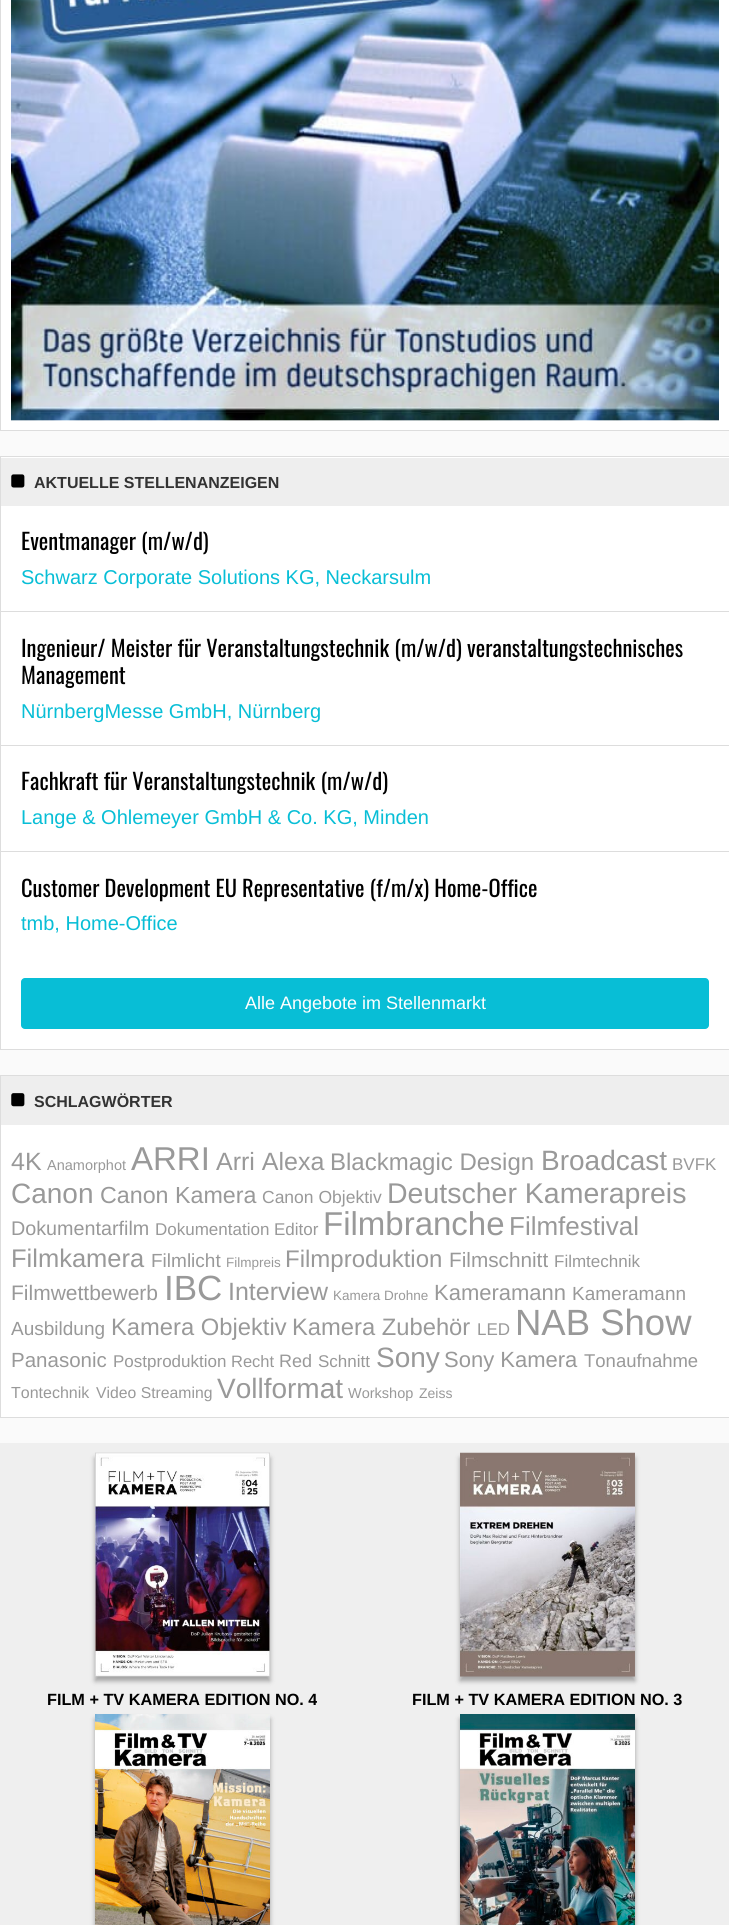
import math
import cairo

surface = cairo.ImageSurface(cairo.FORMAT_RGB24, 729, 1925)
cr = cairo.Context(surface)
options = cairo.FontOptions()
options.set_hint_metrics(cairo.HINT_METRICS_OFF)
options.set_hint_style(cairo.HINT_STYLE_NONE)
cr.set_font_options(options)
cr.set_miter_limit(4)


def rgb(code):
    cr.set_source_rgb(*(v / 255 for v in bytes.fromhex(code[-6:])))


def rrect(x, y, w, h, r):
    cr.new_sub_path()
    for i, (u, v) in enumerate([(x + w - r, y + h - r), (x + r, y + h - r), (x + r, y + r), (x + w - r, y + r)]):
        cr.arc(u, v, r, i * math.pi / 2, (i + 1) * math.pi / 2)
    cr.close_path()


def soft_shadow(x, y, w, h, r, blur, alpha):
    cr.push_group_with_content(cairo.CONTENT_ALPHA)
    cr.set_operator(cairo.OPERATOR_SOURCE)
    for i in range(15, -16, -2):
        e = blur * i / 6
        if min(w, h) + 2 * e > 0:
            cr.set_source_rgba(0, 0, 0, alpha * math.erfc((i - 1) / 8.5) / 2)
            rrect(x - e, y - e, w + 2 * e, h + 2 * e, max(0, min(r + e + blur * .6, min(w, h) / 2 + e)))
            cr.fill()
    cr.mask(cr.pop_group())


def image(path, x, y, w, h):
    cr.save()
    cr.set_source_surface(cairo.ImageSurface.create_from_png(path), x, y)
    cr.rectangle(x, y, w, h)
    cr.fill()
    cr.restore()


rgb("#fafafa")
cr.paint()
rgb("#ffffff")
cr.rectangle(0.5, -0.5, 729, 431)
cr.fill_preserve()
rgb("#dddddd")
cr.set_line_width(1)
cr.stroke()
image("img/1.png", 11, 0, 708, 421)
rgb("#ffffff")
cr.rectangle(0.5, 456.5, 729, 593)
cr.fill_preserve()
rgb("#dddddd")
cr.stroke()
rgb("#eeeeee")
cr.rectangle(1, 458, 728, 48)
cr.fill()
image("img/2.png", 11, 474, 14, 14)
for x, y, w, h, color in [
    (1, 611, 728, 1, "#dddddd"),
    (1, 745, 728, 1, "#dddddd"),
    (1, 851, 728, 1, "#dddddd"),
]:
    rgb(color)
    cr.rectangle(x, y, w, h)
    cr.fill()
rgb("#08bed6")
rrect(21, 978, 688, 51, 4)
cr.fill()
rgb("#ffffff")
cr.rectangle(1, 1125, 728, 292)
cr.fill()
cr.rectangle(0.5, 1075.5, 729, 342)
rgb("#dddddd")
cr.stroke()
rgb("#eeeeee")
cr.rectangle(1, 1076, 728, 49)
cr.fill()
image("img/3.png", 11, 1093, 14, 14)
rgb("#efefef")
cr.rectangle(0, 1443, 729, 482)
cr.fill()
rgb("#a2a2a2")
soft_shadow(95, 1458, 175, 223, 0, 2.5, 1)
image("img/4.png", 95, 1452, 175, 225)
soft_shadow(460, 1458, 175, 223, 0, 2.5, 1)
image("img/5.png", 460, 1452, 175, 225)
soft_shadow(95, 1719, 175, 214, 0, 2.5, 1)
image("img/6.png", 95, 1714, 175, 211)
soft_shadow(460, 1719, 175, 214, 0, 2.5, 1)
image("img/7.png", 460, 1714, 175, 211)
cr.select_font_face("Liberation Sans", cairo.FONT_SLANT_NORMAL, cairo.FONT_WEIGHT_BOLD)
cr.set_font_size(16)
rgb("#333333")
cr.move_to(34, 488)
cr.show_text("AKTUELLE STELLENANZEIGEN")
cr.select_font_face("Oswald")
cr.set_font_size(22.5)
rgb("#000000")
cr.move_to(21, 550)
cr.show_text("Eventmanager (m/w/d)")
cr.select_font_face("Liberation Sans")
cr.set_font_size(20)
rgb("#08bed6")
cr.move_to(21, 584)
cr.show_text("Schwarz Corporate Solutions KG, Neckarsulm")
cr.select_font_face("Oswald")
cr.set_font_size(22.5)
rgb("#000000")
cr.move_to(21, 657)
cr.show_text("Ingenieur/ Meister für Veranstaltungstechnik (m/w/d) veranstaltungstechnisches")
cr.move_to(21, 684)
cr.show_text("Management")
cr.select_font_face("Liberation Sans")
cr.set_font_size(20)
rgb("#08bed6")
cr.move_to(21, 718)
cr.show_text("NürnbergMesse GmbH, Nürnberg")
cr.select_font_face("Oswald")
cr.set_font_size(22.5)
rgb("#000000")
cr.move_to(21, 790)
cr.show_text("Fachkraft für Veranstaltungstechnik (m/w/d)")
cr.select_font_face("Liberation Sans")
cr.set_font_size(20)
rgb("#08bed6")
cr.move_to(21, 824)
cr.show_text("Lange & Ohlemeyer GmbH & Co. KG, Minden")
cr.select_font_face("Oswald")
cr.set_font_size(22.5)
rgb("#000000")
cr.move_to(21, 897)
cr.show_text("Customer Development EU Representative (f/m/x) Home-Office")
cr.select_font_face("Liberation Sans")
cr.set_font_size(20)
rgb("#08bed6")
cr.move_to(21, 930)
cr.show_text("tmb, Home-Office")
cr.set_font_size(18)
rgb("#ffffff")
cr.move_to(245, 1009)
cr.show_text("Alle Angebote im Stellenmarkt")
cr.select_font_face("Liberation Sans", cairo.FONT_SLANT_NORMAL, cairo.FONT_WEIGHT_BOLD)
cr.set_font_size(16)
rgb("#333333")
cr.move_to(34, 1107)
cr.show_text("SCHLAGWÖRTER")
cr.select_font_face("Liberation Sans")
cr.set_font_size(25)
rgb("#999999")
cr.move_to(11, 1170)
cr.show_text("4K")
cr.set_font_size(14.5)
cr.move_to(47, 1170)
cr.show_text("Anamorphot")
cr.set_font_size(33)
cr.move_to(131, 1170)
cr.show_text("ARRI")
cr.set_font_size(25)
cr.move_to(216, 1170)
cr.show_text("Arri Alexa")
cr.set_font_size(24)
cr.move_to(330, 1170)
cr.show_text("Blackmagic Design")
cr.set_font_size(28)
cr.move_to(541, 1170)
cr.show_text("Broadcast")
cr.set_font_size(17)
cr.move_to(672, 1170)
cr.show_text("BVFK")
cr.set_font_size(28)
cr.move_to(11, 1203)
cr.show_text("Canon")
cr.set_font_size(23.25)
cr.move_to(100, 1203)
cr.show_text("Canon Kamera")
cr.set_font_size(17.5)
cr.move_to(262, 1203)
cr.show_text("Canon Objektiv")
cr.set_font_size(28.5)
cr.move_to(387, 1203)
cr.show_text("Deutscher Kamerapreis")
cr.set_font_size(19.75)
cr.move_to(11, 1235)
cr.show_text("Dokumentarfilm")
cr.set_font_size(17)
cr.move_to(155, 1235)
cr.show_text("Dokumentation")
cr.move_to(274, 1235)
cr.show_text("Editor")
cr.set_font_size(33)
cr.move_to(323, 1235)
cr.show_text("Filmbranche")
cr.set_font_size(26)
cr.move_to(509, 1235)
cr.show_text("Filmfestival")
cr.set_font_size(25.5)
cr.move_to(11, 1267)
cr.show_text("Filmkamera")
cr.set_font_size(19)
cr.move_to(151, 1267)
cr.show_text("Filmlicht")
cr.set_font_size(13.5)
cr.move_to(226, 1267)
cr.show_text("Filmpreis")
cr.set_font_size(24)
cr.move_to(285, 1267)
cr.show_text("Filmproduktion")
cr.set_font_size(20.75)
cr.move_to(449, 1267)
cr.show_text("Filmschnitt")
cr.set_font_size(17)
cr.move_to(554, 1267)
cr.show_text("Filmtechnik")
cr.set_font_size(21)
cr.move_to(11, 1300)
cr.show_text("Filmwettbewerb")
cr.set_font_size(35)
cr.move_to(164, 1300)
cr.show_text("IBC")
cr.set_font_size(25)
cr.move_to(228, 1300)
cr.show_text("Interview")
cr.set_font_size(13.5)
cr.move_to(333, 1300)
cr.show_text("Kamera Drohne")
cr.set_font_size(22)
cr.move_to(434, 1300)
cr.show_text("Kameramann")
cr.set_font_size(19)
cr.move_to(572, 1300)
cr.show_text("Kameramann")
cr.move_to(11, 1335)
cr.show_text("Ausbildung")
cr.set_font_size(23.75)
cr.move_to(111, 1335)
cr.show_text("Kamera Objektiv")
cr.move_to(292, 1335)
cr.show_text("Kamera Zubehör")
cr.set_font_size(17)
cr.move_to(477, 1335)
cr.show_text("LED")
cr.set_font_size(36.5)
cr.move_to(515, 1335)
cr.show_text("NAB Show")
cr.set_font_size(20.5)
cr.move_to(11, 1367)
cr.show_text("Panasonic")
cr.set_font_size(17)
cr.move_to(113, 1367)
cr.show_text("Postproduktion")
cr.set_font_size(16.5)
cr.move_to(231, 1367)
cr.show_text("Recht")
cr.set_font_size(18)
cr.move_to(279, 1367)
cr.show_text("Red")
cr.set_font_size(17)
cr.move_to(318, 1367)
cr.show_text("Schnitt")
cr.set_font_size(28)
cr.move_to(376, 1367)
cr.show_text("Sony")
cr.set_font_size(22)
cr.move_to(444, 1367)
cr.show_text("Sony Kamera")
cr.set_font_size(18.5)
cr.move_to(584, 1367)
cr.show_text("Tonaufnahme")
cr.set_font_size(16)
cr.move_to(11, 1398)
cr.show_text("Tontechnik")
cr.set_font_size(15.75)
cr.move_to(96, 1398)
cr.show_text("Video Streaming")
cr.set_font_size(28)
cr.move_to(217, 1398)
cr.show_text("Vollformat")
cr.set_font_size(14.5)
cr.move_to(348, 1398)
cr.show_text("Workshop")
cr.set_font_size(14)
cr.move_to(419, 1398)
cr.show_text("Zeiss")
cr.select_font_face("Liberation Sans", cairo.FONT_SLANT_NORMAL, cairo.FONT_WEIGHT_BOLD)
cr.set_font_size(16.25)
rgb("#000000")
cr.move_to(47, 1705)
cr.show_text("FILM + TV KAMERA EDITION NO. 4")
cr.move_to(412, 1705)
cr.show_text("FILM + TV KAMERA EDITION NO. 3")
surface.write_to_png("page.png")
